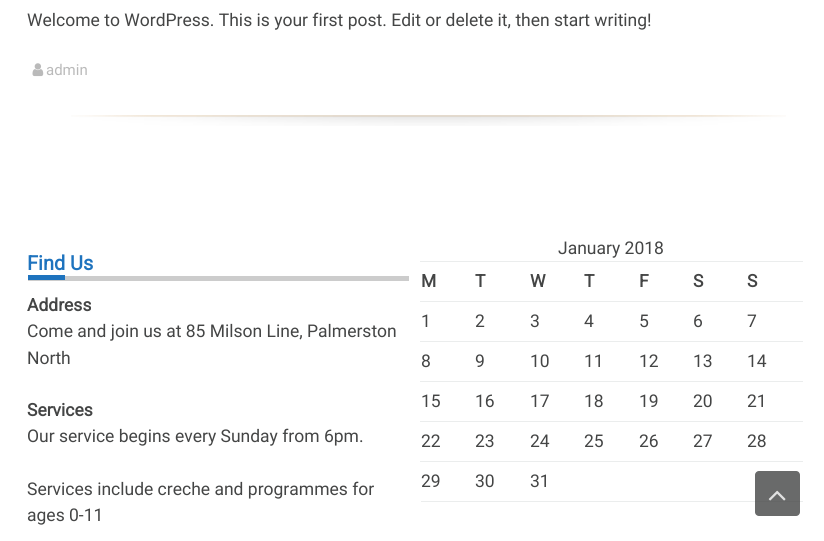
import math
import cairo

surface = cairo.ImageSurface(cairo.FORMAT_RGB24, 824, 541)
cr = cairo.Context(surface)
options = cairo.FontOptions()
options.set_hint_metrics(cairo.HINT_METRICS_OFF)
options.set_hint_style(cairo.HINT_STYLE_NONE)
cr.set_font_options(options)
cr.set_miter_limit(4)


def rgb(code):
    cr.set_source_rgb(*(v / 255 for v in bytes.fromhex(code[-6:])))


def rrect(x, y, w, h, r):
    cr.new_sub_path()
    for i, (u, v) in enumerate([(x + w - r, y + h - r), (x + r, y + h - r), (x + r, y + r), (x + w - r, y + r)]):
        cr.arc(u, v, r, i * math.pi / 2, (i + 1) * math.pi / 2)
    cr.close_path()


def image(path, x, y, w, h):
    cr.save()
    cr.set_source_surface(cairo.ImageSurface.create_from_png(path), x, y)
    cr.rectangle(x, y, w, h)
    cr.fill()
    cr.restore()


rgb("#ffffff")
cr.paint()
image("img/1.png", 71, 115, 715, 11)
image("img/2.png", 32, 63, 12, 14)
for x, y, w, h, color in [
    (28, 276, 381, 5, "#cccccc"),
    (28, 275, 37, 5, "#1e73be"),
    (421, 501, 382, 1, "#ebeded"),
    (420, 261, 383, 1, "#ebeded"),
    (420, 301, 383, 1, "#ebeded"),
    (420, 341, 383, 1, "#ebeded"),
    (420, 381, 383, 1, "#ebeded"),
    (420, 421, 383, 1, "#ebeded"),
    (420, 461, 383, 1, "#ebeded"),
]:
    rgb(color)
    cr.rectangle(x, y, w, h)
    cr.fill()
cr.set_source_rgba(0.267, 0.271, 0.271, 0.8)
rrect(755, 471, 45, 45, 4)
cr.fill()
image("img/3.png", 768, 490, 18, 11)
cr.select_font_face("Roboto")
cr.set_font_size(17.5)
rgb("#444545")
cr.move_to(27, 26)
cr.show_text("Welcome to WordPress. This is your first post. Edit or delete it, then start writing!")
cr.set_font_size(15)
rgb("#bababa")
cr.move_to(46, 75)
cr.show_text("admin")
cr.select_font_face("Roboto", cairo.FONT_SLANT_NORMAL, cairo.FONT_WEIGHT_BOLD)
cr.set_font_size(20)
rgb("#1e73be")
cr.move_to(27, 270)
cr.show_text("Find")
cr.move_to(70, 270)
cr.show_text("Us")
cr.set_font_size(17.5)
rgb("#444545")
cr.move_to(27, 311)
cr.show_text("Address")
cr.select_font_face("Roboto")
cr.move_to(27, 337)
cr.show_text("Come and join us at 85 Milson Line, Palmerston")
cr.move_to(27, 364)
cr.show_text("North")
cr.select_font_face("Roboto", cairo.FONT_SLANT_NORMAL, cairo.FONT_WEIGHT_BOLD)
cr.move_to(27, 416)
cr.show_text("Services")
cr.select_font_face("Roboto")
for x, y, s in [
    (27, 442, "Our service begins every Sunday from 6pm."),
    (27, 495, "Services include creche and programmes for"),
    (27, 521, "ages 0-11"),
    (558, 254, "January 2018"),
]:
    cr.move_to(x, y)
    cr.show_text(s)
cr.select_font_face("Roboto", cairo.FONT_SLANT_NORMAL, cairo.FONT_WEIGHT_BOLD)
for x, y, s in [
    (421, 287, "M"),
    (475, 287, "T"),
    (530, 287, "W"),
    (584, 287, "T"),
    (639, 287, "F"),
    (693, 287, "S"),
    (747, 287, "S"),
]:
    cr.move_to(x, y)
    cr.show_text(s)
cr.select_font_face("Roboto")
for x, y, s in [
    (421, 327, "1"),
    (475, 327, "2"),
    (530, 327, "3"),
    (584, 327, "4"),
    (639, 327, "5"),
    (693, 327, "6"),
    (747, 327, "7"),
    (421, 367, "8"),
    (475, 367, "9"),
    (530, 367, "10"),
    (584, 367, "11"),
    (639, 367, "12"),
    (693, 367, "13"),
    (747, 367, "14"),
    (421, 407, "15"),
    (475, 407, "16"),
    (530, 407, "17"),
    (584, 407, "18"),
    (639, 407, "19"),
    (693, 407, "20"),
    (747, 407, "21"),
    (421, 447, "22"),
    (475, 447, "23"),
    (530, 447, "24"),
    (584, 447, "25"),
    (639, 447, "26"),
    (693, 447, "27"),
    (747, 447, "28"),
    (421, 487, "29"),
    (475, 487, "30"),
    (530, 487, "31"),
]:
    cr.move_to(x, y)
    cr.show_text(s)
surface.write_to_png("page.png")
